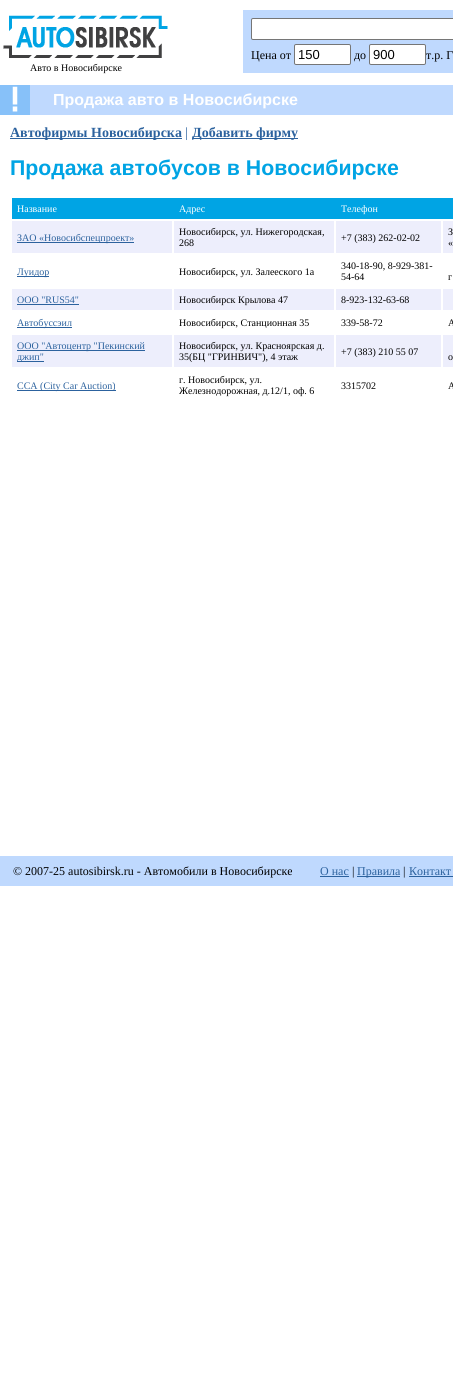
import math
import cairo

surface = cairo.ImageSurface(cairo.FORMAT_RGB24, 453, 1394)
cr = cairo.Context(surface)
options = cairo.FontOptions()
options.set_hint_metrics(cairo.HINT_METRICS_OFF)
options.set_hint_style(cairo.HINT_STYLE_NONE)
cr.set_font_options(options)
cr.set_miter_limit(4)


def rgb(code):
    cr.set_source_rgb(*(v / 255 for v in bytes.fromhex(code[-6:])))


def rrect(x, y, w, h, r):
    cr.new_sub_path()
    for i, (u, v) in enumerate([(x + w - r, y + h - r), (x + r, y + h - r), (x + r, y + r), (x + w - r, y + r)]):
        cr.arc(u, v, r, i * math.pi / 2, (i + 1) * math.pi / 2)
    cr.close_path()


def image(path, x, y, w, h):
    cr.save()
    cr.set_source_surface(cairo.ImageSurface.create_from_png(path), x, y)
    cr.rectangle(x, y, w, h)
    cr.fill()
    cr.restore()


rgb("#ffffff")
cr.paint()
rgb("#bfd9fe")
cr.rectangle(243, 10, 210, 63)
cr.fill()
rgb("#ffffff")
rrect(251.5, 18.5, 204, 21, 1.5)
cr.fill_preserve()
rgb("#767676")
cr.set_line_width(1)
cr.stroke()
rgb("#ffffff")
rrect(294.5, 44.5, 56, 20, 1.5)
cr.fill_preserve()
rgb("#767676")
cr.stroke()
rgb("#ffffff")
rrect(369.5, 44.5, 56, 20, 1.5)
cr.fill_preserve()
rgb("#767676")
cr.stroke()
image("img/1.png", 3, 15, 165, 43)
rgb("#bfd9fe")
cr.rectangle(30, 85, 423, 30)
cr.fill()
image("img/2.png", 0, 85, 30, 30)
for x, y, w, h, color in [
    (10, 138, 172, 1, "#2c629e"),
    (192, 138, 106, 1, "#2c629e"),
    (12, 198, 441, 21, "#00a4e4"),
    (12, 221, 160, 32, "#edeefc"),
    (17, 242, 117, 1, "#2c629e"),
    (174, 221, 160, 32, "#edeefc"),
    (336, 221, 105, 32, "#edeefc"),
    (443, 221, 10, 32, "#edeefc"),
    (17, 276, 32, 1, "#2c629e"),
    (12, 289, 160, 21, "#edeefc"),
    (17, 304, 62, 1, "#2c629e"),
    (174, 289, 160, 21, "#edeefc"),
    (336, 289, 105, 21, "#edeefc"),
    (443, 289, 10, 21, "#edeefc"),
    (17, 327, 55, 1, "#2c629e"),
    (12, 335, 160, 32, "#edeefc"),
    (17, 350, 128, 1, "#2c629e"),
    (17, 361, 27, 1, "#2c629e"),
    (174, 335, 160, 32, "#edeefc"),
    (336, 335, 105, 32, "#edeefc"),
    (443, 335, 10, 32, "#edeefc"),
    (17, 390, 99, 1, "#2c629e"),
    (0, 856, 453, 30, "#bfd9fe"),
    (320, 876, 29, 1, "#2c629e"),
    (357, 876, 43, 1, "#2c629e"),
    (409, 876, 44, 1, "#2c629e"),
]:
    rgb(color)
    cr.rectangle(x, y, w, h)
    cr.fill()
cr.select_font_face("Liberation Serif")
cr.set_font_size(12)
rgb("#000000")
cr.move_to(251, 59)
cr.show_text("Цена от")
cr.select_font_face("Liberation Sans")
cr.set_font_size(13)
cr.move_to(298, 59)
cr.show_text("150")
cr.select_font_face("Liberation Serif")
cr.set_font_size(12)
cr.move_to(354, 59)
cr.show_text("до")
cr.select_font_face("Liberation Sans")
cr.set_font_size(13)
cr.move_to(373, 59)
cr.show_text("900")
cr.select_font_face("Liberation Serif")
cr.set_font_size(12)
cr.move_to(426, 59)
cr.show_text("т.р. Г")
cr.set_font_size(10)
cr.move_to(30, 71)
cr.show_text("Авто в Новосибирске")
cr.select_font_face("Liberation Sans", cairo.FONT_SLANT_NORMAL, cairo.FONT_WEIGHT_BOLD)
cr.set_font_size(16)
rgb("#ffffff")
cr.move_to(53, 105)
cr.show_text("Продажа авто в Новосибирске")
cr.select_font_face("Liberation Serif", cairo.FONT_SLANT_NORMAL, cairo.FONT_WEIGHT_BOLD)
cr.set_font_size(14)
rgb("#2c629e")
cr.move_to(10, 137)
cr.show_text("Автофирмы Новосибирска")
cr.select_font_face("Liberation Serif")
cr.move_to(185, 137)
cr.show_text("|")
cr.select_font_face("Liberation Serif", cairo.FONT_SLANT_NORMAL, cairo.FONT_WEIGHT_BOLD)
cr.move_to(192, 137)
cr.show_text("Добавить фирму")
cr.select_font_face("Liberation Sans", cairo.FONT_SLANT_NORMAL, cairo.FONT_WEIGHT_BOLD)
cr.set_font_size(21.3)
rgb("#00a4e4")
cr.move_to(10, 175)
cr.show_text("Продажа автобусов в Новосибирске")
cr.select_font_face("Liberation Serif")
cr.set_font_size(10)
rgb("#ffffff")
for x, y, s in [
    (17, 212, "Название"),
    (179, 212, "Адрес"),
    (341, 212, "Телефон"),
]:
    cr.move_to(x, y)
    cr.show_text(s)
rgb("#2c629e")
cr.move_to(17, 241)
cr.show_text("ЗАО «Новосибспецпроект»")
rgb("#000000")
for x, y, s in [
    (179, 235, "Новосибирск, ул. Нижегородская,"),
    (179, 246, "268"),
    (341, 241, "+7 (383) 262-02-02"),
    (448, 235, "З"),
    (448, 246, "«"),
]:
    cr.move_to(x, y)
    cr.show_text(s)
rgb("#2c629e")
cr.move_to(17, 275)
cr.show_text("Луидор")
rgb("#000000")
for x, y, s in [
    (179, 275, "Новосибирск, ул. Залееского 1а"),
    (341, 269, "340-18-90, 8-929-381-"),
    (341, 280, "54-64"),
    (448, 280, "г"),
]:
    cr.move_to(x, y)
    cr.show_text(s)
rgb("#2c629e")
cr.move_to(17, 303)
cr.show_text("OOO \"RUS54\"")
rgb("#000000")
cr.move_to(179, 303)
cr.show_text("Новосибирск Крылова 47")
cr.move_to(341, 303)
cr.show_text("8-923-132-63-68")
rgb("#2c629e")
cr.move_to(17, 326)
cr.show_text("Автобуссэил")
rgb("#000000")
for x, y, s in [
    (179, 326, "Новосибирск, Станционная 35"),
    (341, 326, "339-58-72"),
    (448, 326, "А"),
]:
    cr.move_to(x, y)
    cr.show_text(s)
rgb("#2c629e")
cr.move_to(17, 349)
cr.show_text("ООО \"Автоцентр \"Пекинский")
cr.move_to(17, 360)
cr.show_text("джип\"")
rgb("#000000")
for x, y, s in [
    (179, 349, "Новосибирск, ул. Красноярская д."),
    (179, 360, "35(БЦ \"ГРИНВИЧ\"), 4 этаж"),
    (341, 355, "+7 (383) 210 55 07"),
    (448, 360, "о"),
]:
    cr.move_to(x, y)
    cr.show_text(s)
rgb("#2c629e")
cr.move_to(17, 389)
cr.show_text("CCA (City Car Auction)")
rgb("#000000")
for x, y, s in [
    (179, 383, "г. Новосибирск, ул."),
    (179, 394, "Железнодорожная, д.12/1, оф. 6"),
    (341, 389, "3315702"),
    (448, 389, "А"),
]:
    cr.move_to(x, y)
    cr.show_text(s)
cr.set_font_size(12)
cr.move_to(13, 875)
cr.show_text("© 2007-25 autosibirsk.ru - Автомобили в Новосибирске")
rgb("#2c629e")
cr.move_to(320, 875)
cr.show_text("О нас")
rgb("#000000")
cr.move_to(352, 875)
cr.show_text("|")
rgb("#2c629e")
cr.move_to(357, 875)
cr.show_text("Правила")
rgb("#000000")
cr.move_to(403, 875)
cr.show_text("|")
rgb("#2c629e")
cr.move_to(409, 875)
cr.show_text("Контакт")
surface.write_to_png("page.png")
